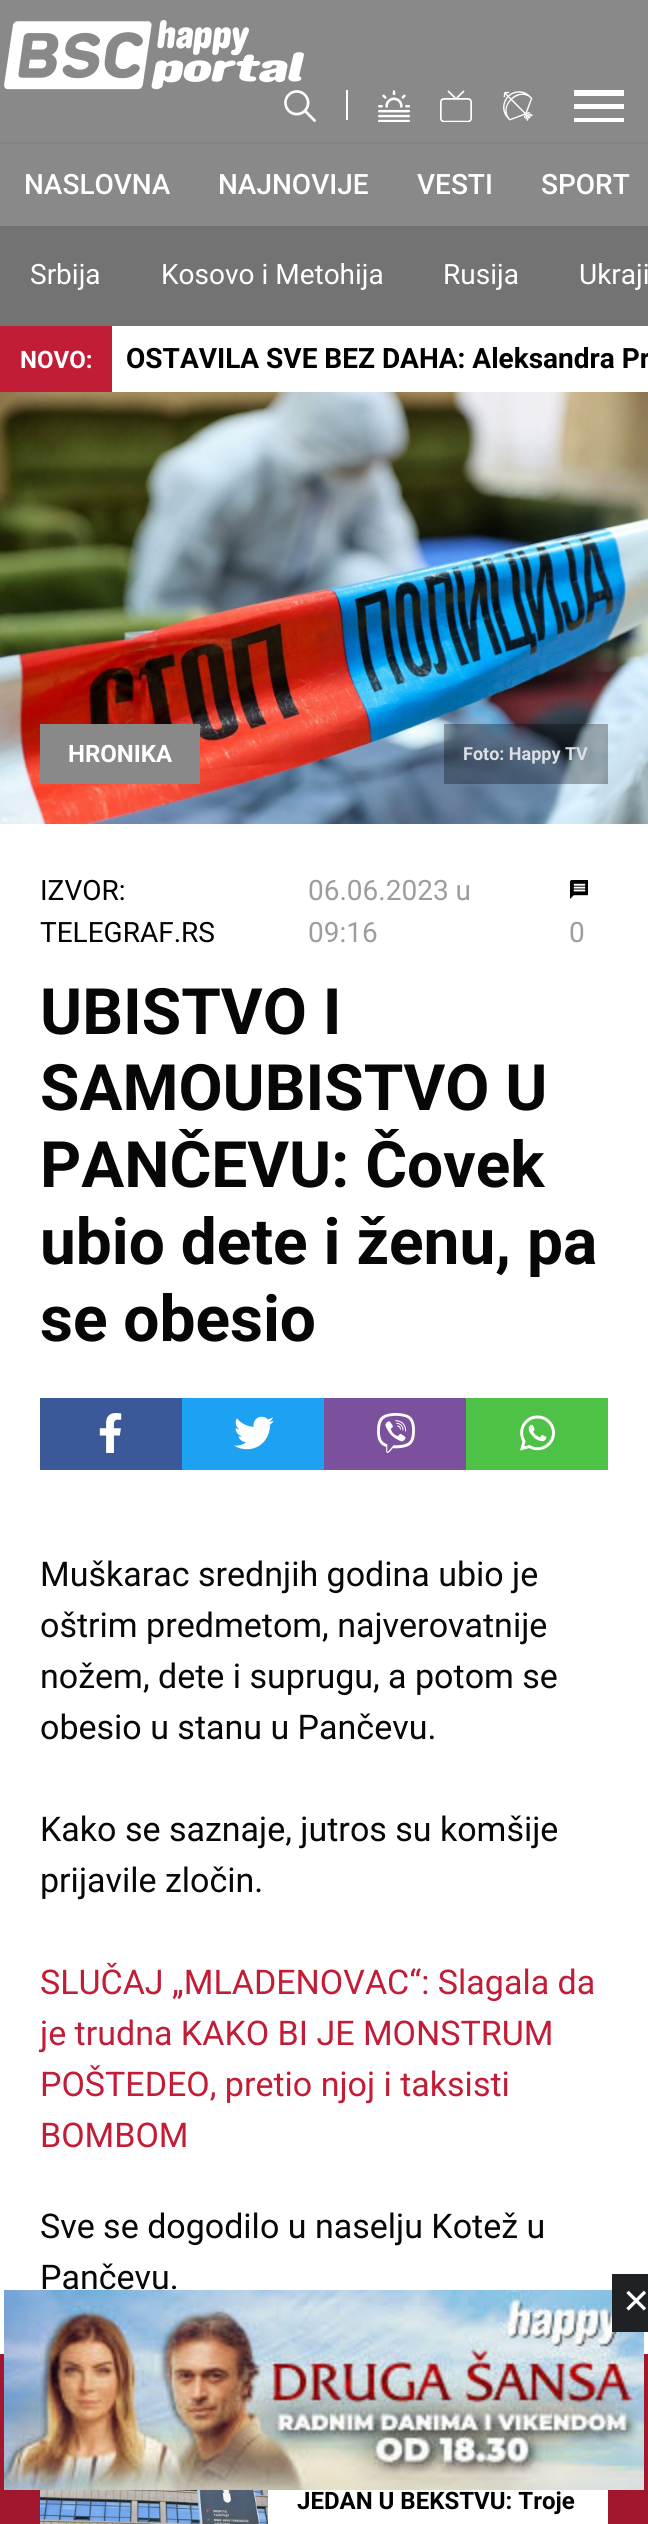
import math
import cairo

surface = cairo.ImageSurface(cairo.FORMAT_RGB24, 648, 2524)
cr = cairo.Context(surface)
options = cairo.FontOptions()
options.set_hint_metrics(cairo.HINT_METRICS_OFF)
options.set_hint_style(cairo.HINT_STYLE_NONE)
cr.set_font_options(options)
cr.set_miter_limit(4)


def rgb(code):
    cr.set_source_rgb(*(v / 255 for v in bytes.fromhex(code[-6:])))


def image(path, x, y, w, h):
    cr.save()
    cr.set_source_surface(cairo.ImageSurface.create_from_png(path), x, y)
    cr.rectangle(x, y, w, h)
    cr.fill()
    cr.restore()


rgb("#ffffff")
cr.paint()
rgb("#898989")
cr.rectangle(0, 0, 648, 142)
cr.fill()
image("img/1.png", 4, 20, 300, 70)
image("img/2.png", 284, 90, 32, 32)
rgb("#ffffff")
cr.rectangle(346, 90, 2, 30)
cr.fill()
image("img/3.png", 378, 90, 32, 32)
image("img/4.png", 440, 90, 32, 32)
image("img/5.png", 503, 91, 30, 30)
for x, y, w, h, color in [
    (574, 90, 50, 6, "#ffffff"),
    (574, 104, 50, 5, "#ffffff"),
    (574, 118, 50, 4, "#ffffff"),
    (0, 144, 648, 82, "#898989"),
    (0, 142, 648, 2, "#828282"),
    (0, 226, 648, 100, "#737373"),
    (0, 326, 112, 66, "#c11d36"),
]:
    rgb(color)
    cr.rectangle(x, y, w, h)
    cr.fill()
image("img/6.png", 0, 392, 648, 432)
rgb("#898989")
cr.rectangle(40, 724, 160, 60)
cr.fill()
cr.set_source_rgba(0, 0, 0, 0.31)
cr.rectangle(444, 724, 164, 60)
cr.fill()
image("img/7.png", 570, 880, 18, 19)
rgb("#3b5998")
cr.rectangle(40, 1398, 142, 72)
cr.fill()
image("img/8.png", 99, 1413, 23, 40)
rgb("#1da1f2")
cr.rectangle(182, 1398, 142, 72)
cr.fill()
image("img/9.png", 234, 1416, 40, 34)
rgb("#7b519d")
cr.rectangle(324, 1398, 142, 72)
cr.fill()
image("img/10.png", 377, 1413, 38, 40)
rgb("#4dc247")
cr.rectangle(466, 1398, 142, 72)
cr.fill()
image("img/11.png", 520, 1415, 35, 36)
rgb("#a2172e")
cr.rectangle(0, 2354, 648, 170)
cr.fill()
rgb("#ffffff")
cr.rectangle(268, 2490, 340, 34)
cr.fill()
image("img/12.png", 40, 2490, 228, 34)
image("img/13.png", 4, 2290, 640, 200)
rgb("#202124")
cr.rectangle(612, 2274, 36, 58)
cr.fill()
cr.select_font_face("Roboto Medium")
cr.set_font_size(28)
rgb("#ffffff")
for x, y, s in [
    (24, 194, "NASLOVNA"),
    (218, 194, "NAJNOVIJE"),
    (417, 194, "VESTI"),
    (541, 194, "SPORT"),
]:
    cr.move_to(x, y)
    cr.show_text(s)
cr.select_font_face("Roboto")
for x, y, s in [
    (30, 284, "Srbija"),
    (161, 284, "Kosovo i Metohija"),
    (443, 284, "Rusija"),
    (579, 284, "Ukraji"),
]:
    cr.move_to(x, y)
    cr.show_text(s)
cr.select_font_face("Roboto", cairo.FONT_SLANT_NORMAL, cairo.FONT_WEIGHT_BOLD)
cr.set_font_size(24)
cr.move_to(20, 368)
cr.show_text("NOVO:")
cr.set_font_size(28)
rgb("#000000")
cr.move_to(126, 368)
cr.show_text("OSTAVILA SVE BEZ DAHA: Aleksandra Pr")
cr.set_font_size(24)
rgb("#ffffff")
cr.move_to(68, 762)
cr.show_text("HRONIKA")
cr.set_font_size(18)
rgb("#dce0e4")
cr.move_to(463, 760)
cr.show_text("Foto: Happy TV")
cr.select_font_face("Roboto")
cr.set_font_size(28)
rgb("#000000")
cr.move_to(40, 900)
cr.show_text("IZVOR:")
cr.move_to(40, 942)
cr.show_text("TELEGRAF.RS")
rgb("#9d9d9d")
for x, y, s in [
    (308, 900, "06.06.2023 u"),
    (308, 942, "09:16"),
    (569, 942, "0"),
]:
    cr.move_to(x, y)
    cr.show_text(s)
cr.select_font_face("Roboto", cairo.FONT_SLANT_NORMAL, cairo.FONT_WEIGHT_BOLD)
cr.set_font_size(64)
rgb("#070707")
for x, y, s in [
    (40, 1034, "UBISTVO I"),
    (40, 1110, "SAMOUBISTVO U"),
    (40, 1187, "PANČEVU: Čovek"),
    (40, 1264, "ubio dete i ženu, pa"),
    (40, 1341, "se obesio"),
]:
    cr.move_to(x, y)
    cr.show_text(s)
cr.select_font_face("Roboto")
cr.set_font_size(34)
for x, y, s in [
    (40, 1586, "Muškarac srednjih godina ubio je"),
    (40, 1637, "oštrim predmetom, najverovatnije"),
    (40, 1688, "nožem, dete i suprugu, a potom se"),
    (40, 1739, "obesio u stanu u Pančevu."),
    (40, 1841, "Kako se saznaje, jutros su komšije"),
    (40, 1892, "prijavile zločin."),
]:
    cr.move_to(x, y)
    cr.show_text(s)
rgb("#c11d36")
for x, y, s in [
    (40, 1994, "SLUČAJ „MLADENOVAC“: Slagala da"),
    (40, 2045, "je trudna KAKO BI JE MONSTRUM"),
    (40, 2096, "POŠTEDEO, pretio njoj i taksisti"),
    (40, 2147, "BOMBOM"),
]:
    cr.move_to(x, y)
    cr.show_text(s)
rgb("#070707")
cr.move_to(40, 2238)
cr.show_text("Sve se dogodilo u naselju Kotež u")
cr.move_to(40, 2289)
cr.show_text("Pančevu.")
cr.select_font_face("Roboto", cairo.FONT_SLANT_NORMAL, cairo.FONT_WEIGHT_BOLD)
cr.set_font_size(24)
rgb("#000000")
cr.move_to(297, 2509)
cr.show_text("JEDAN U BEKSTVU: Troje")
cr.select_font_face("DejaVu Sans")
cr.set_font_size(34)
rgb("#ffffff")
cr.move_to(622, 2313)
cr.show_text("✕")
surface.write_to_png("page.png")
